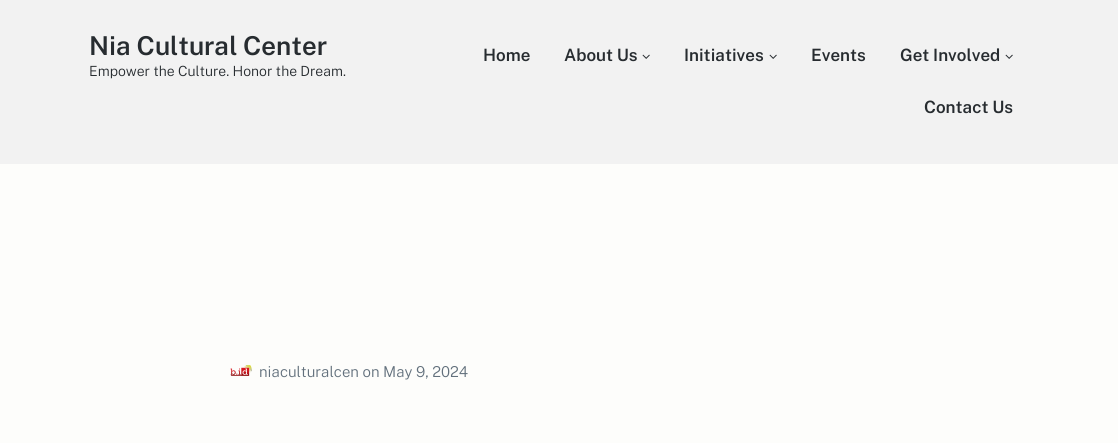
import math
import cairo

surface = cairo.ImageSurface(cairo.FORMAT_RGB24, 1118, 443)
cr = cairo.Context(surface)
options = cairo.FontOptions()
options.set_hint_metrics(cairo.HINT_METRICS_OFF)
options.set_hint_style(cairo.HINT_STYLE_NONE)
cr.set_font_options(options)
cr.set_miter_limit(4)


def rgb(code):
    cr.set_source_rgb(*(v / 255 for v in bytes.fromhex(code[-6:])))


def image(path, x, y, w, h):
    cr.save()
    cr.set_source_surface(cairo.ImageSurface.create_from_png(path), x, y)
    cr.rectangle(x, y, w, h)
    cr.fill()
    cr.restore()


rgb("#fdfdfb")
cr.paint()
rgb("#f2f2f2")
cr.rectangle(0, 0, 1118, 164)
cr.fill()
image("img/1.png", 642, 54, 8, 5)
image("img/1.png", 769, 54, 8, 5)
image("img/1.png", 1005, 54, 8, 5)
image("img/2.png", 230, 365, 22, 11)
cr.select_font_face("Public Sans SemiBold")
cr.set_font_size(26)
rgb("#272c30")
cr.move_to(89, 55)
cr.show_text("Nia Cultural Center")
cr.select_font_face("Public Sans Light")
cr.set_font_size(14)
cr.move_to(89, 76)
cr.show_text("Empower the Culture. Honor the Dream.")
cr.select_font_face("Public Sans SemiBold")
cr.set_font_size(17)
for x, y, s in [
    (483, 61, "Home"),
    (564, 61, "About Us"),
    (684, 61, "Initiatives"),
    (811, 61, "Events"),
    (900, 61, "Get Involved"),
    (924, 113, "Contact Us"),
]:
    cr.move_to(x, y)
    cr.show_text(s)
cr.select_font_face("Public Sans Light")
cr.set_font_size(15)
rgb("#62707c")
cr.move_to(259, 377)
cr.show_text("niaculturalcen on May 9, 2024")
surface.write_to_png("page.png")
